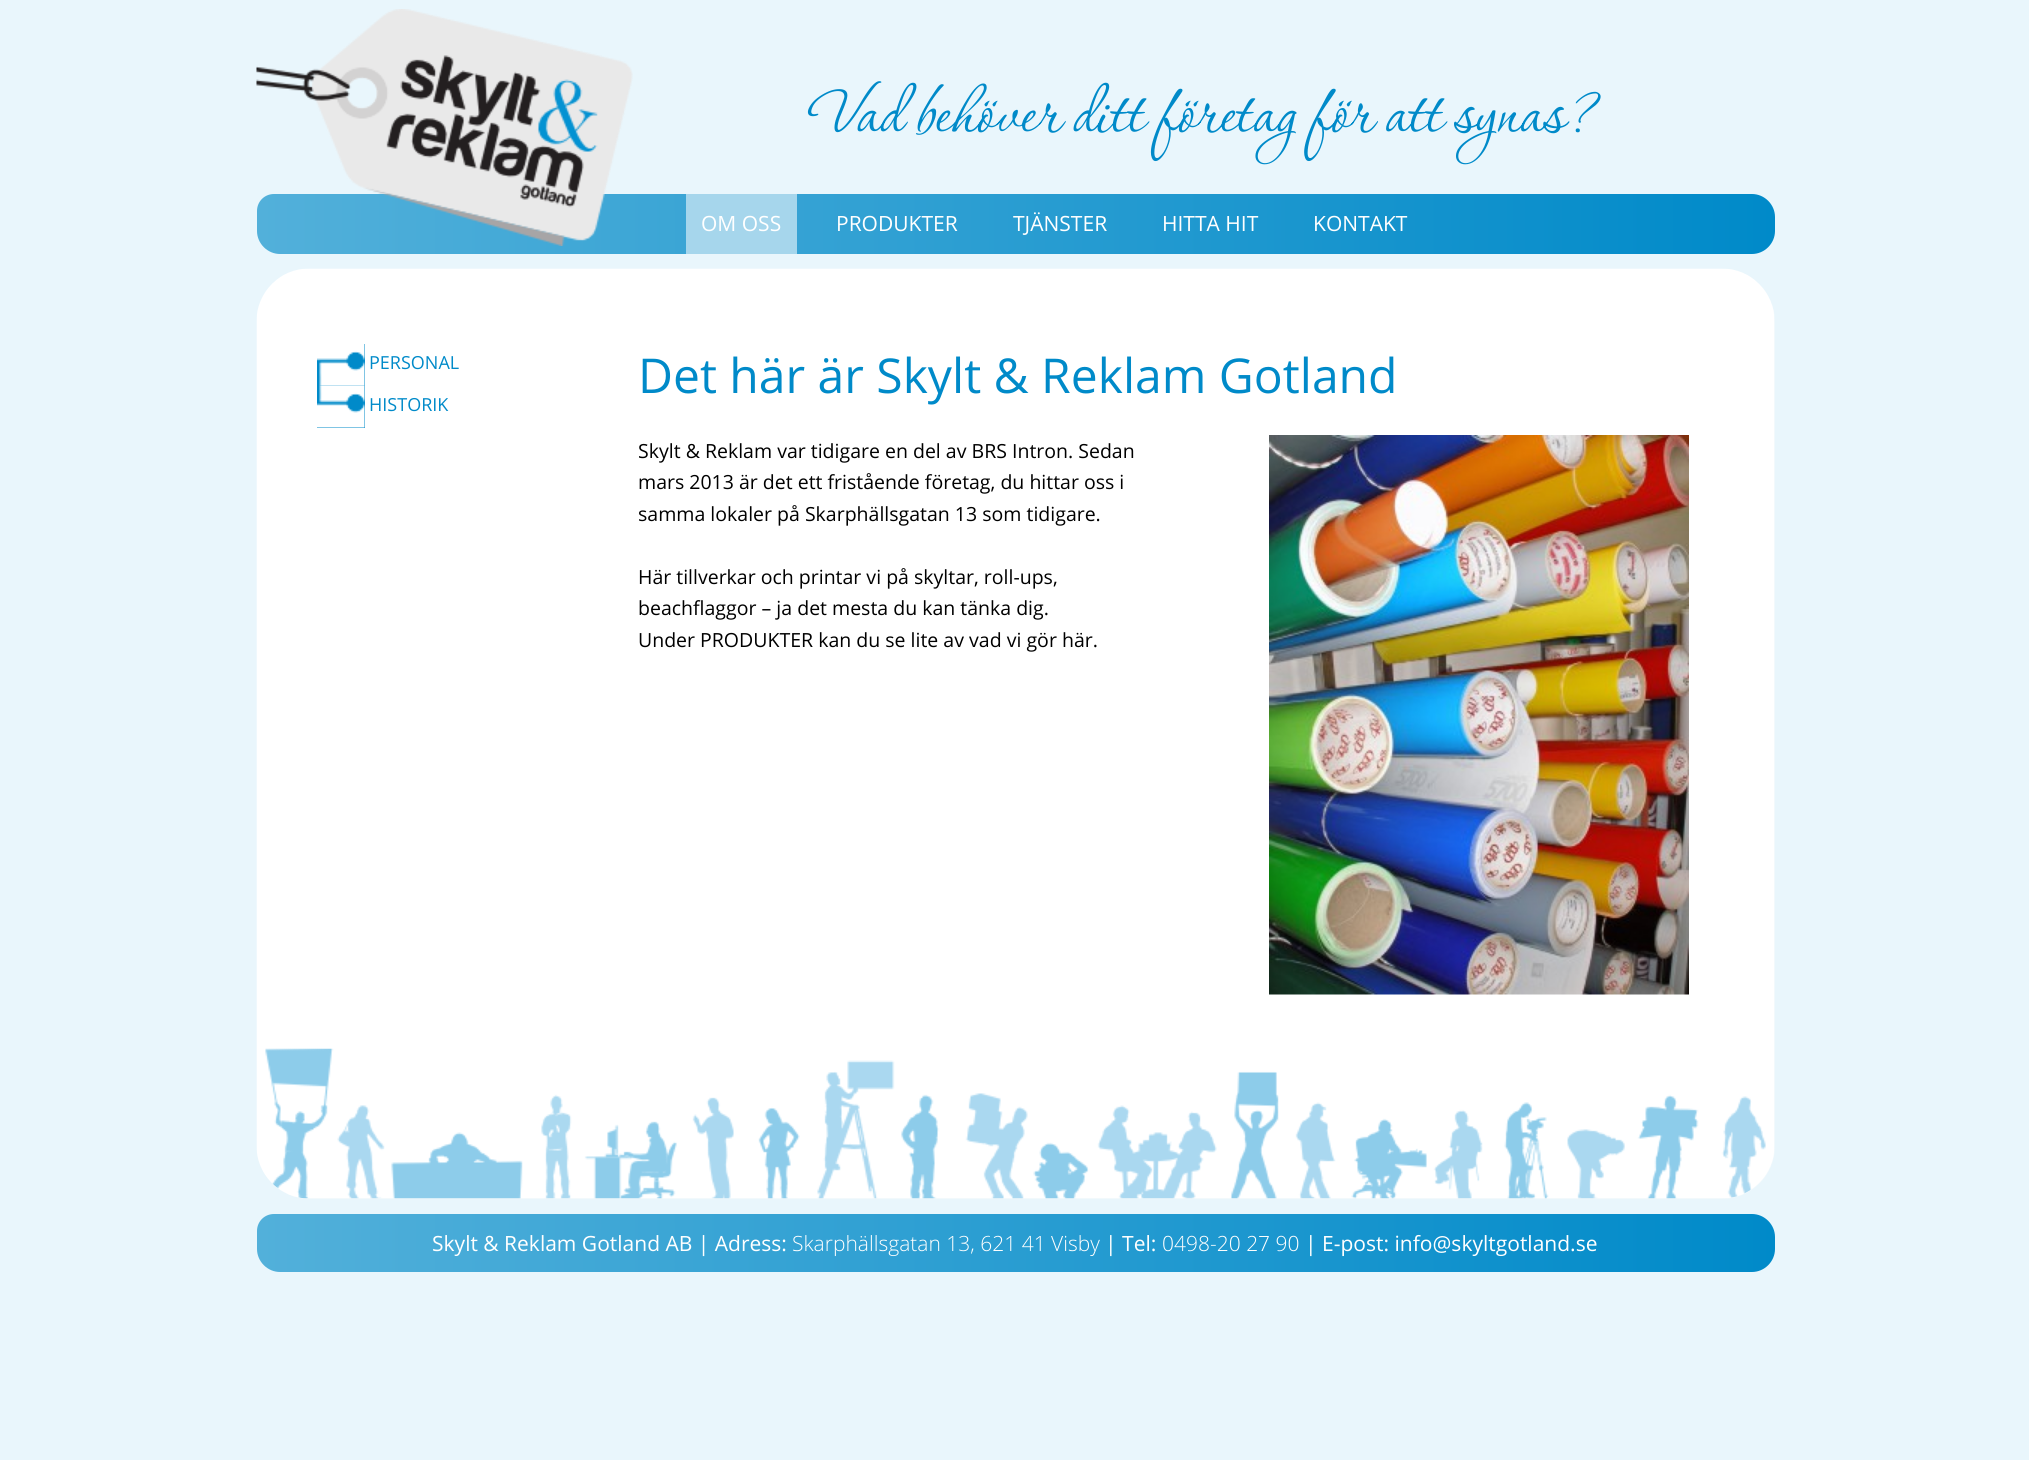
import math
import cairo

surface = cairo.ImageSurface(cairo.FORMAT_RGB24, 2029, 1460)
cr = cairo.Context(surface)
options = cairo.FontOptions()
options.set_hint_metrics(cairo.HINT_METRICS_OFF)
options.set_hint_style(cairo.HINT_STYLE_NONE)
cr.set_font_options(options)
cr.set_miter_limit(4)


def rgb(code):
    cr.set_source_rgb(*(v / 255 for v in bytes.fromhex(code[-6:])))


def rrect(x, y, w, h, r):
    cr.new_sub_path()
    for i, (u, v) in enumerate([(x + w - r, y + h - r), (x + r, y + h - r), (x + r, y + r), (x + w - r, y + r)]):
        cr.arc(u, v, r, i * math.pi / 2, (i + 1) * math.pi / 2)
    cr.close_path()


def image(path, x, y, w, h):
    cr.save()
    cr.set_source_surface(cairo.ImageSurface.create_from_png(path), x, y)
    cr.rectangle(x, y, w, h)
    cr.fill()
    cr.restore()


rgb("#e9f6fc")
cr.paint()
gradient = cairo.LinearGradient(257, 224, 1775, 223)
gradient.add_color_stop_rgba(0, 0.322, 0.69, 0.855, 1)
gradient.add_color_stop_rgba(1, 0, 0.541, 0.788, 1)
cr.set_source(gradient)
cr.new_path()
cr.move_to(274, 194)
cr.line_to(1752, 194)
cr.curve_to(1764.5, 194, 1775, 204.5, 1775, 217)
cr.line_to(1775, 231)
cr.curve_to(1775, 243.5, 1764.5, 254, 1752, 254)
cr.line_to(280, 254)
cr.curve_to(267.5, 254, 257, 243.5, 257, 231)
cr.line_to(257, 211)
cr.curve_to(257, 201.5, 264.5, 194, 274, 194)
cr.close_path()
cr.fill()
image("img/1.png", 256, 9, 377, 237)
rgb("#a6d6ec")
cr.rectangle(686, 194, 111, 60)
cr.fill()
rgb("#f2f9fc")
rrect(257, 269, 1518, 930, 53)
cr.fill()
image("img/2.png", 256, 268, 1518, 930)
rgb("#008ac9")
cr.rectangle(317, 344, 48, 84)
cr.fill()
image("img/3.png", 317, 344, 48, 42)
image("img/4.png", 317, 385, 48, 43)
image("img/5.png", 1269, 435, 420, 560)
image("img/6.png", 265, 1048, 1501, 151)
gradient = cairo.LinearGradient(257, 1243, 1775, 1243)
gradient.add_color_stop_rgba(0, 0.322, 0.69, 0.855, 1)
gradient.add_color_stop_rgba(1, 0, 0.541, 0.788, 1)
cr.set_source(gradient)
cr.new_path()
cr.move_to(274, 1214)
cr.line_to(1752, 1214)
cr.curve_to(1764.5, 1214, 1775, 1224.5, 1775, 1237)
cr.line_to(1775, 1249)
cr.curve_to(1775, 1261.5, 1764.5, 1272, 1752, 1272)
cr.line_to(280, 1272)
cr.curve_to(267.5, 1272, 257, 1261.5, 257, 1249)
cr.line_to(257, 1231)
cr.curve_to(257, 1221.5, 264.5, 1214, 274, 1214)
cr.close_path()
cr.fill()
cr.select_font_face("Corinthia")
cr.set_font_size(81)
rgb("#008ac9")
cr.move_to(808, 131)
cr.show_text("Vad behöver ditt företag för att synas?")
cr.select_font_face("Open Sans")
cr.set_font_size(21)
rgb("#ffffff")
for x, y, s in [
    (701, 231, "OM OSS"),
    (836, 231, "PRODUKTER"),
    (1013, 231, "TJÄNSTER"),
    (1162, 231, "HITTA HIT"),
    (1313, 231, "KONTAKT"),
]:
    cr.move_to(x, y)
    cr.show_text(s)
cr.set_font_size(18)
rgb("#008ac9")
cr.move_to(369, 369)
cr.show_text("PERSONAL")
cr.move_to(369, 411)
cr.show_text("HISTORIK")
cr.set_font_size(48)
cr.move_to(638, 393)
cr.show_text("Det här är Skylt & Reklam Gotland")
cr.set_font_size(19.5)
rgb("#000000")
for x, y, s in [
    (638, 458, "Skylt & Reklam var tidigare en del av BRS Intron. Sedan"),
    (638, 489, "mars 2013 är det ett fristående företag, du hittar oss i"),
    (638, 521, "samma lokaler på Skarphällsgatan 13 som tidigare."),
    (638, 584, "Här tillverkar och printar vi på skyltar, roll-ups,"),
    (638, 615, "beachflaggor – ja det mesta du kan tänka dig."),
    (638, 647, "Under PRODUKTER kan du se lite av vad vi gör här."),
]:
    cr.move_to(x, y)
    cr.show_text(s)
cr.set_font_size(21)
rgb("#ffffff")
cr.move_to(432, 1251)
cr.show_text("Skylt & Reklam Gotland AB | Adress:")
cr.select_font_face("Open Sans Light")
cr.move_to(792, 1251)
cr.show_text("Skarphällsgatan 13, 621 41 Visby")
cr.select_font_face("Open Sans")
cr.move_to(1105, 1251)
cr.show_text("| Tel:")
cr.select_font_face("Open Sans Light")
cr.move_to(1162, 1251)
cr.show_text("0498-20 27 90")
cr.select_font_face("Open Sans")
cr.move_to(1305, 1251)
cr.show_text("| E-post: info@skyltgotland.se")
surface.write_to_png("page.png")
